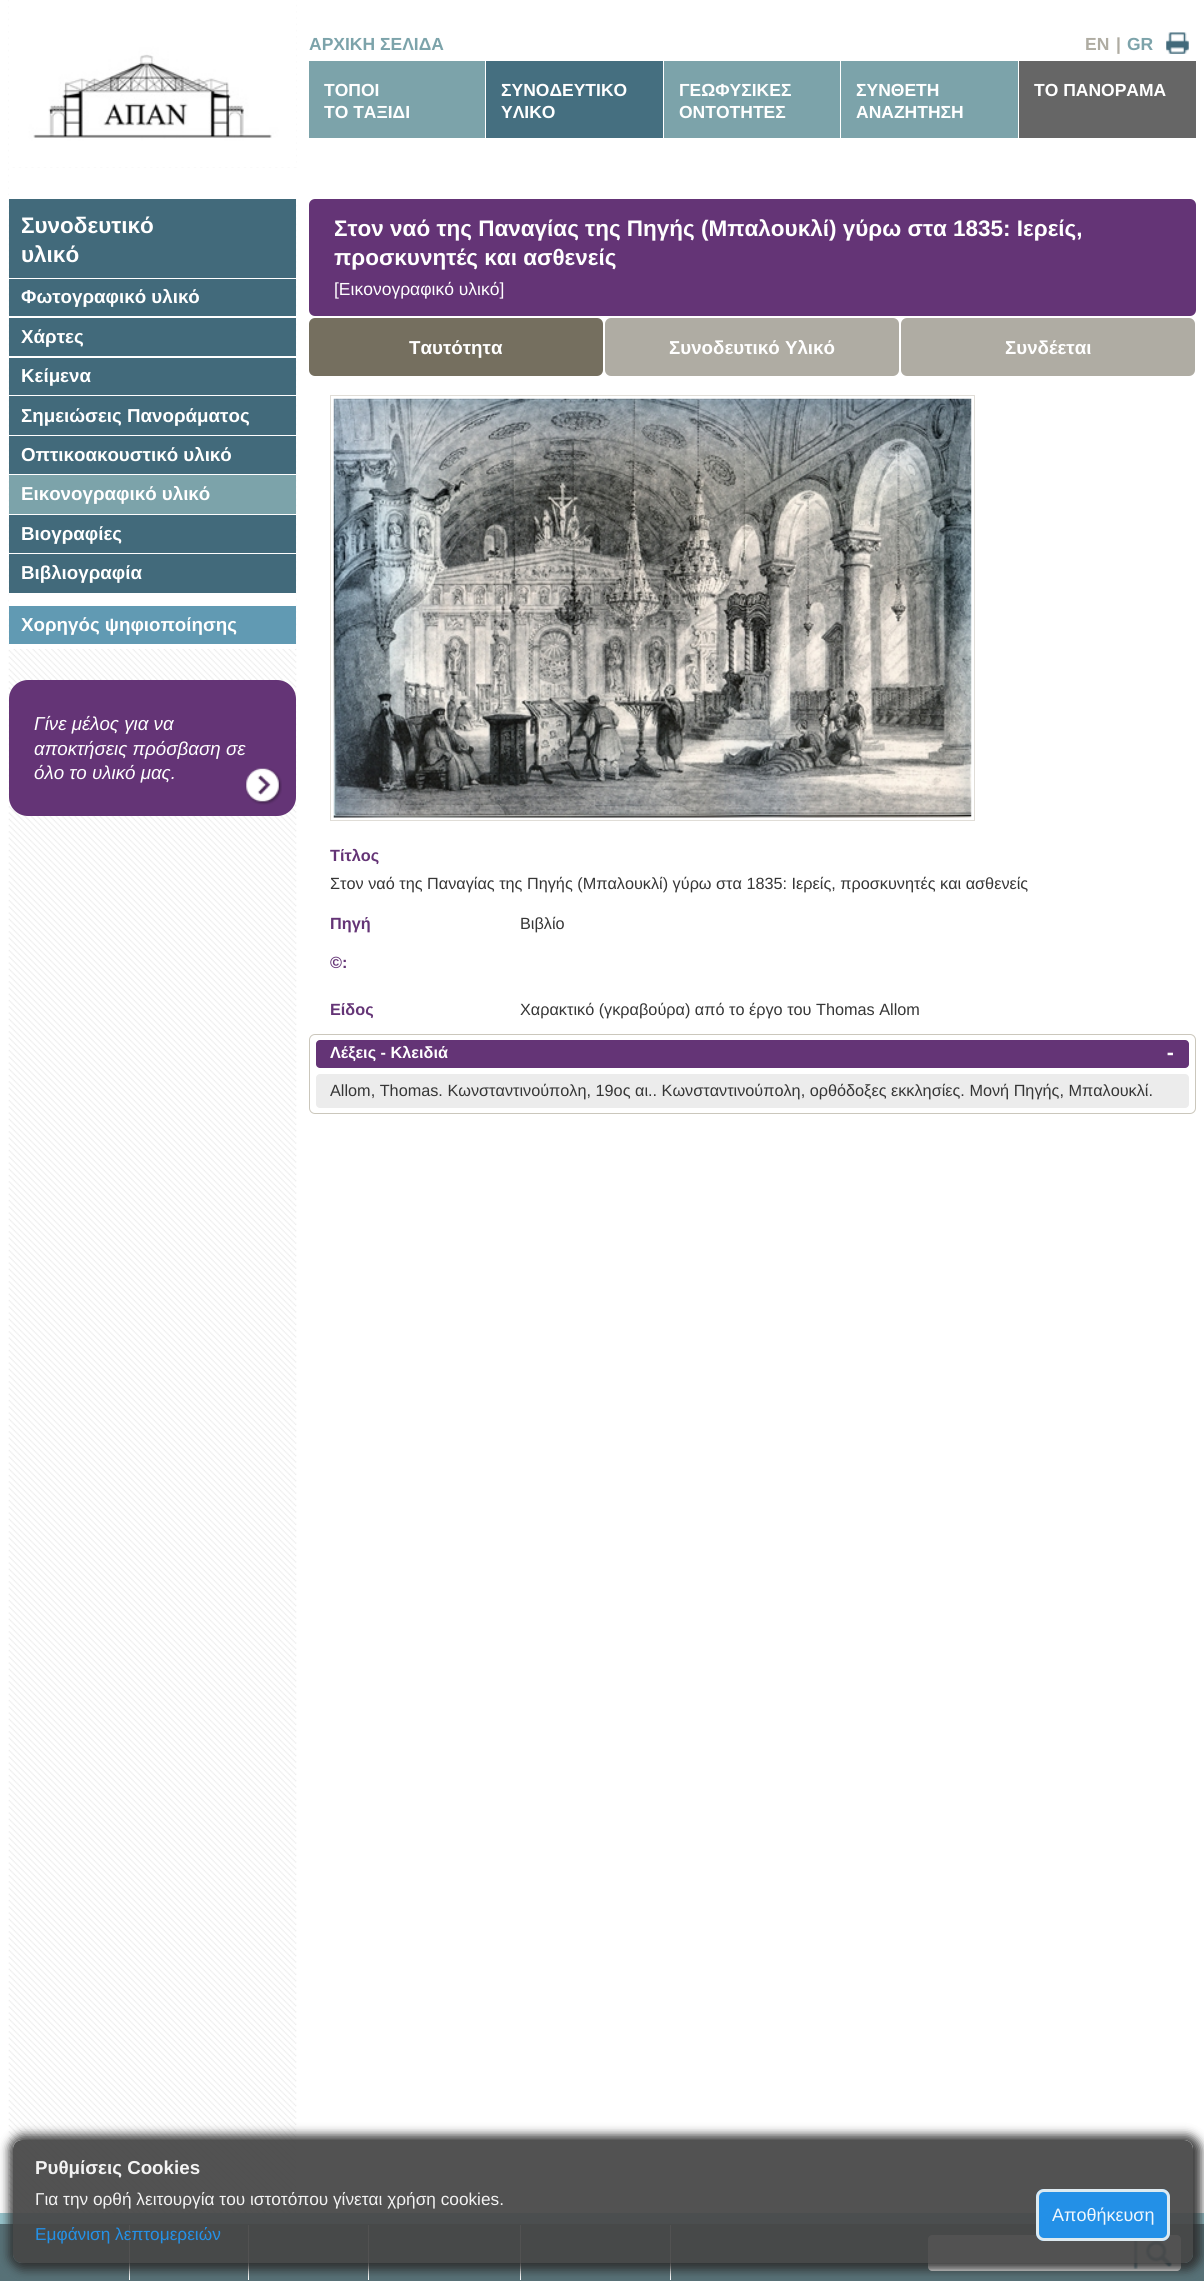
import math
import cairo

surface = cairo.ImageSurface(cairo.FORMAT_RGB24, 1204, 2281)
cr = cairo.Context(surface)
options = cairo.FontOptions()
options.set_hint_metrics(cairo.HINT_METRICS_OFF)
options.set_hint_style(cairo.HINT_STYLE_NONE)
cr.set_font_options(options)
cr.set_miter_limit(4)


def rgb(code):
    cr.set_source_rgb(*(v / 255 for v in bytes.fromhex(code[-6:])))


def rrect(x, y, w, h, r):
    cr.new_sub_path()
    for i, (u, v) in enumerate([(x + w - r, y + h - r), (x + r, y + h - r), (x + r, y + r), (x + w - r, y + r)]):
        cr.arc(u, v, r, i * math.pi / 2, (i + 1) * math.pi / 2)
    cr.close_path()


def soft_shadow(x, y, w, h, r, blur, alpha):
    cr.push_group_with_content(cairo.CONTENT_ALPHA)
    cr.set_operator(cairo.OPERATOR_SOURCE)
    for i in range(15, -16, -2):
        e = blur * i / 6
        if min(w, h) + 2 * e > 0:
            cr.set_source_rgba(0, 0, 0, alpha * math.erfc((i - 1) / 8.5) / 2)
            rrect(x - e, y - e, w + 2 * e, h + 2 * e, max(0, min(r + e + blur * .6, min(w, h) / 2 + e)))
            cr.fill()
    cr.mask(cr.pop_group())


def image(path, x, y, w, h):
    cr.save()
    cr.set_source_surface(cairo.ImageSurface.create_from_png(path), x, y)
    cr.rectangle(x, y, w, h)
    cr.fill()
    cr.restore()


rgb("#ffffff")
cr.paint()
image("img/1.png", 8, 0, 289, 2213)
image("img/2.png", 9, 0, 287, 168)
image("img/3.png", 1166, 32, 23, 22)
for x, y, w, h, color in [
    (1019, 61, 177, 77, "#666666"),
    (309, 61, 176, 77, "#7ca3aa"),
    (486, 61, 177, 77, "#456f80"),
    (664, 61, 176, 77, "#7ca3aa"),
    (841, 61, 177, 77, "#7ca3aa"),
    (9, 168, 288, 31, "#ffffff"),
    (9, 278, 287, 371, "#ffffff"),
    (9, 199, 287, 79, "#426a7b"),
    (9, 279, 287, 37, "#426a7b"),
    (9, 318, 287, 38, "#426a7b"),
    (9, 358, 287, 37, "#426a7b"),
    (9, 396, 287, 39, "#426a7b"),
    (9, 436, 287, 38, "#426a7b"),
    (9, 475, 287, 39, "#7ca3aa"),
    (9, 515, 287, 38, "#426a7b"),
    (9, 554, 287, 39, "#426a7b"),
    (9, 606, 287, 38, "#619ab3"),
]:
    rgb(color)
    cr.rectangle(x, y, w, h)
    cr.fill()
rgb("#643476")
rrect(9, 680, 287, 136, 19)
cr.fill()
image("img/4.png", 245, 768, 37, 37)
rrect(309, 199, 887, 117, 6)
cr.fill()
rgb("#756f5f")
rrect(309, 318, 294, 58, 6)
cr.fill()
rgb("#afaca3")
rrect(605, 318, 294, 58, 6)
cr.fill()
rrect(901, 318, 294, 58, 6)
cr.fill()
cr.rectangle(330.5, 395.5, 644, 425)
rgb("#e0ddd7")
cr.set_line_width(1)
cr.stroke()
image("img/5.png", 333, 398, 639, 420)
rrect(309.5, 1034.5, 886, 79, 5.5)
rgb("#cbc7bc")
cr.stroke()
rgb("#643476")
rrect(316, 1040, 873, 28, 4)
cr.fill()
rgb("#ececec")
rrect(316, 1074, 873, 34, 4)
cr.fill()
for x, y, w, h, color in [
    (0, 2224, 1204, 57, "#577177"),
    (0, 2213, 1204, 11, "#99c6ce"),
    (129, 2225, 1, 55, "#ffffff"),
    (248, 2225, 1, 55, "#ffffff"),
    (368, 2225, 1, 55, "#ffffff"),
    (520, 2225, 1, 55, "#ffffff"),
    (670, 2225, 1, 55, "#ffffff"),
]:
    rgb(color)
    cr.rectangle(x, y, w, h)
    cr.fill()
cr.new_path()
cr.move_to(932, 2235)
cr.line_to(1134, 2235)
cr.line_to(1134, 2271)
cr.line_to(932, 2271)
cr.curve_to(930, 2271, 928, 2269, 928, 2267)
cr.line_to(928, 2239)
cr.curve_to(928, 2237, 930, 2235, 932, 2235)
cr.close_path()
cr.fill()
cr.new_path()
cr.move_to(1134, 2235)
cr.line_to(1177, 2235)
cr.curve_to(1179, 2235, 1181, 2237, 1181, 2239)
cr.line_to(1181, 2267)
cr.curve_to(1181, 2269, 1179, 2271, 1177, 2271)
cr.line_to(1134, 2271)
cr.close_path()
cr.fill()
image("img/6.png", 1133, 2237, 39, 32)
cr.save()
cr.set_fill_rule(cairo.FILL_RULE_EVEN_ODD)
cr.new_path()
cr.move_to(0, 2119)
cr.line_to(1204, 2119)
cr.line_to(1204, 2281)
cr.line_to(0, 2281)
cr.close_path()
cr.move_to(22, 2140)
cr.line_to(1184, 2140)
cr.curve_to(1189, 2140, 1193, 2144, 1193, 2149)
cr.line_to(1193, 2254)
cr.curve_to(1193, 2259, 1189, 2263, 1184, 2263)
cr.line_to(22, 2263)
cr.curve_to(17, 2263, 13, 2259, 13, 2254)
cr.line_to(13, 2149)
cr.curve_to(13, 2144, 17, 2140, 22, 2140)
cr.close_path()
cr.clip()
rgb("#2d2d2d")
soft_shadow(9, 2135, 1192, 135, 15, 5, 0.93)
cr.restore()
cr.set_source_rgba(0.275, 0.275, 0.275, 0.93)
rrect(13, 2140, 1180, 123, 9)
cr.fill()
cr.set_source_rgba(0.129, 0.588, 0.953, 0.93)
rrect(1036, 2189, 134, 52, 8)
cr.fill()
rrect(1037.5, 2190.5, 131, 49, 6.5)
cr.set_source_rgba(0.922, 0.945, 0.949, 0.93)
cr.set_line_width(3)
cr.stroke()
cr.select_font_face("Liberation Sans", cairo.FONT_SLANT_NORMAL, cairo.FONT_WEIGHT_BOLD)
cr.set_font_size(17.5)
rgb("#7ca3aa")
cr.move_to(309, 50)
cr.show_text("ΑΡΧΙΚΗ ΣΕΛΙΔΑ")
rgb("#afaca2")
cr.move_to(1085, 50)
cr.show_text("EN")
cr.move_to(1116, 50)
cr.show_text("|")
rgb("#7ca3aa")
cr.move_to(1127, 50)
cr.show_text("GR")
rgb("#ffffff")
for x, y, s in [
    (324, 96, "ΤΟΠΟΙ"),
    (324, 118, "ΤΟ ΤΑΞΙΔΙ"),
    (501, 96, "ΣΥΝΟΔΕΥΤΙΚΟ"),
    (501, 118, "ΥΛΙΚΟ"),
    (679, 96, "ΓΕΩΦΥΣΙΚΕΣ"),
    (679, 118, "ΟΝΤΟΤΗΤΕΣ"),
    (856, 96, "ΣΥΝΘΕΤΗ"),
    (856, 118, "ΑΝΑΖΗΤΗΣΗ"),
    (1034, 96, "ΤΟ ΠΑΝΟΡΑΜΑ"),
]:
    cr.move_to(x, y)
    cr.show_text(s)
cr.set_font_size(22.5)
cr.move_to(21, 233)
cr.show_text("Συνοδευτικό")
cr.move_to(21, 262)
cr.show_text("υλικό")
cr.set_font_size(18.75)
for x, y, s in [
    (21, 303, "Φωτογραφικό υλικό"),
    (21, 343, "Χάρτες"),
    (21, 382, "Κείμενα"),
    (21, 422, "Σημειώσεις Πανοράματος"),
    (21, 461, "Οπτικοακουστικό υλικό"),
    (21, 500, "Εικονογραφικό υλικό"),
    (21, 540, "Βιογραφίες"),
    (21, 579, "Βιβλιογραφία"),
    (21, 631, "Χορηγός ψηφιοποίησης"),
]:
    cr.move_to(x, y)
    cr.show_text(s)
cr.select_font_face("Liberation Sans", cairo.FONT_SLANT_ITALIC)
for x, y, s in [
    (34, 730, "Γίνε μέλος για να"),
    (34, 755, "αποκτήσεις πρόσβαση σε"),
    (34, 779, "όλο το υλικό μας."),
]:
    cr.move_to(x, y)
    cr.show_text(s)
cr.select_font_face("Liberation Sans", cairo.FONT_SLANT_NORMAL, cairo.FONT_WEIGHT_BOLD)
cr.set_font_size(22.5)
cr.move_to(334, 236)
cr.show_text("Στον ναό της Παναγίας της Πηγής (Μπαλουκλί) γύρω στα 1835: Ιερείς,")
cr.move_to(334, 265)
cr.show_text("προσκυνητές και ασθενείς")
cr.select_font_face("Liberation Sans")
cr.set_font_size(17.5)
cr.move_to(334, 295)
cr.show_text("[Εικονογραφικό υλικό]")
cr.select_font_face("Liberation Sans", cairo.FONT_SLANT_NORMAL, cairo.FONT_WEIGHT_BOLD)
cr.set_font_size(18.75)
for x, y, s in [
    (409, 354, "Ταυτότητα"),
    (669, 354, "Συνοδευτικό Υλικό"),
    (1005, 354, "Συνδέεται"),
]:
    cr.move_to(x, y)
    cr.show_text(s)
cr.set_font_size(16.25)
rgb("#643476")
cr.move_to(330, 861)
cr.show_text("Τίτλος")
cr.select_font_face("Liberation Sans")
rgb("#363636")
cr.move_to(330, 889)
cr.show_text("Στον ναό της Παναγίας της Πηγής (Μπαλουκλί) γύρω στα 1835: Ιερείς, προσκυνητές και ασθενείς")
cr.select_font_face("Liberation Sans", cairo.FONT_SLANT_NORMAL, cairo.FONT_WEIGHT_BOLD)
rgb("#643476")
cr.move_to(330, 929)
cr.show_text("Πηγή")
cr.select_font_face("Liberation Sans")
rgb("#363636")
cr.move_to(520, 929)
cr.show_text("Βιβλίο")
cr.select_font_face("Liberation Sans", cairo.FONT_SLANT_NORMAL, cairo.FONT_WEIGHT_BOLD)
rgb("#643476")
cr.move_to(330, 968)
cr.show_text("©:")
cr.move_to(330, 1015)
cr.show_text("Είδος")
cr.select_font_face("Liberation Sans")
rgb("#363636")
cr.move_to(520, 1015)
cr.show_text("Χαρακτικό (γκραβούρα) από το έργο του Thomas Allom")
cr.select_font_face("Liberation Sans", cairo.FONT_SLANT_NORMAL, cairo.FONT_WEIGHT_BOLD)
rgb("#ffffff")
cr.move_to(330, 1058)
cr.show_text("Λέξεις - Κλειδιά")
cr.select_font_face("DejaVu Sans Mono", cairo.FONT_SLANT_NORMAL, cairo.FONT_WEIGHT_BOLD)
cr.set_font_size(17.5)
cr.move_to(1165, 1059)
cr.show_text("-")
cr.select_font_face("Liberation Sans")
cr.set_font_size(16.25)
rgb("#363636")
cr.move_to(330, 1096)
cr.show_text("Allom, Thomas. Κωνσταντινούπολη, 19ος αι.. Κωνσταντινούπολη, ορθόδοξες εκκλησίες. Μονή Πηγής, Μπαλουκλί.")
cr.select_font_face("Liberation Sans", cairo.FONT_SLANT_NORMAL, cairo.FONT_WEIGHT_BOLD)
cr.set_font_size(18.75)
rgb("#f3f3f3")
cr.move_to(35, 2174)
cr.show_text("Ρυθμίσεις Cookies")
cr.select_font_face("Liberation Sans")
cr.set_font_size(17.25)
cr.move_to(35, 2205)
cr.show_text("Για την ορθή λειτουργία του ιστοτόπου γίνεται χρήση cookies.")
rgb("#2491e7")
cr.move_to(35, 2240)
cr.show_text("Eμφάνιση λεπτομερειών")
cr.set_font_size(18)
rgb("#f0f7fd")
cr.move_to(1052, 2221)
cr.show_text("Αποθήκευση")
surface.write_to_png("page.png")
